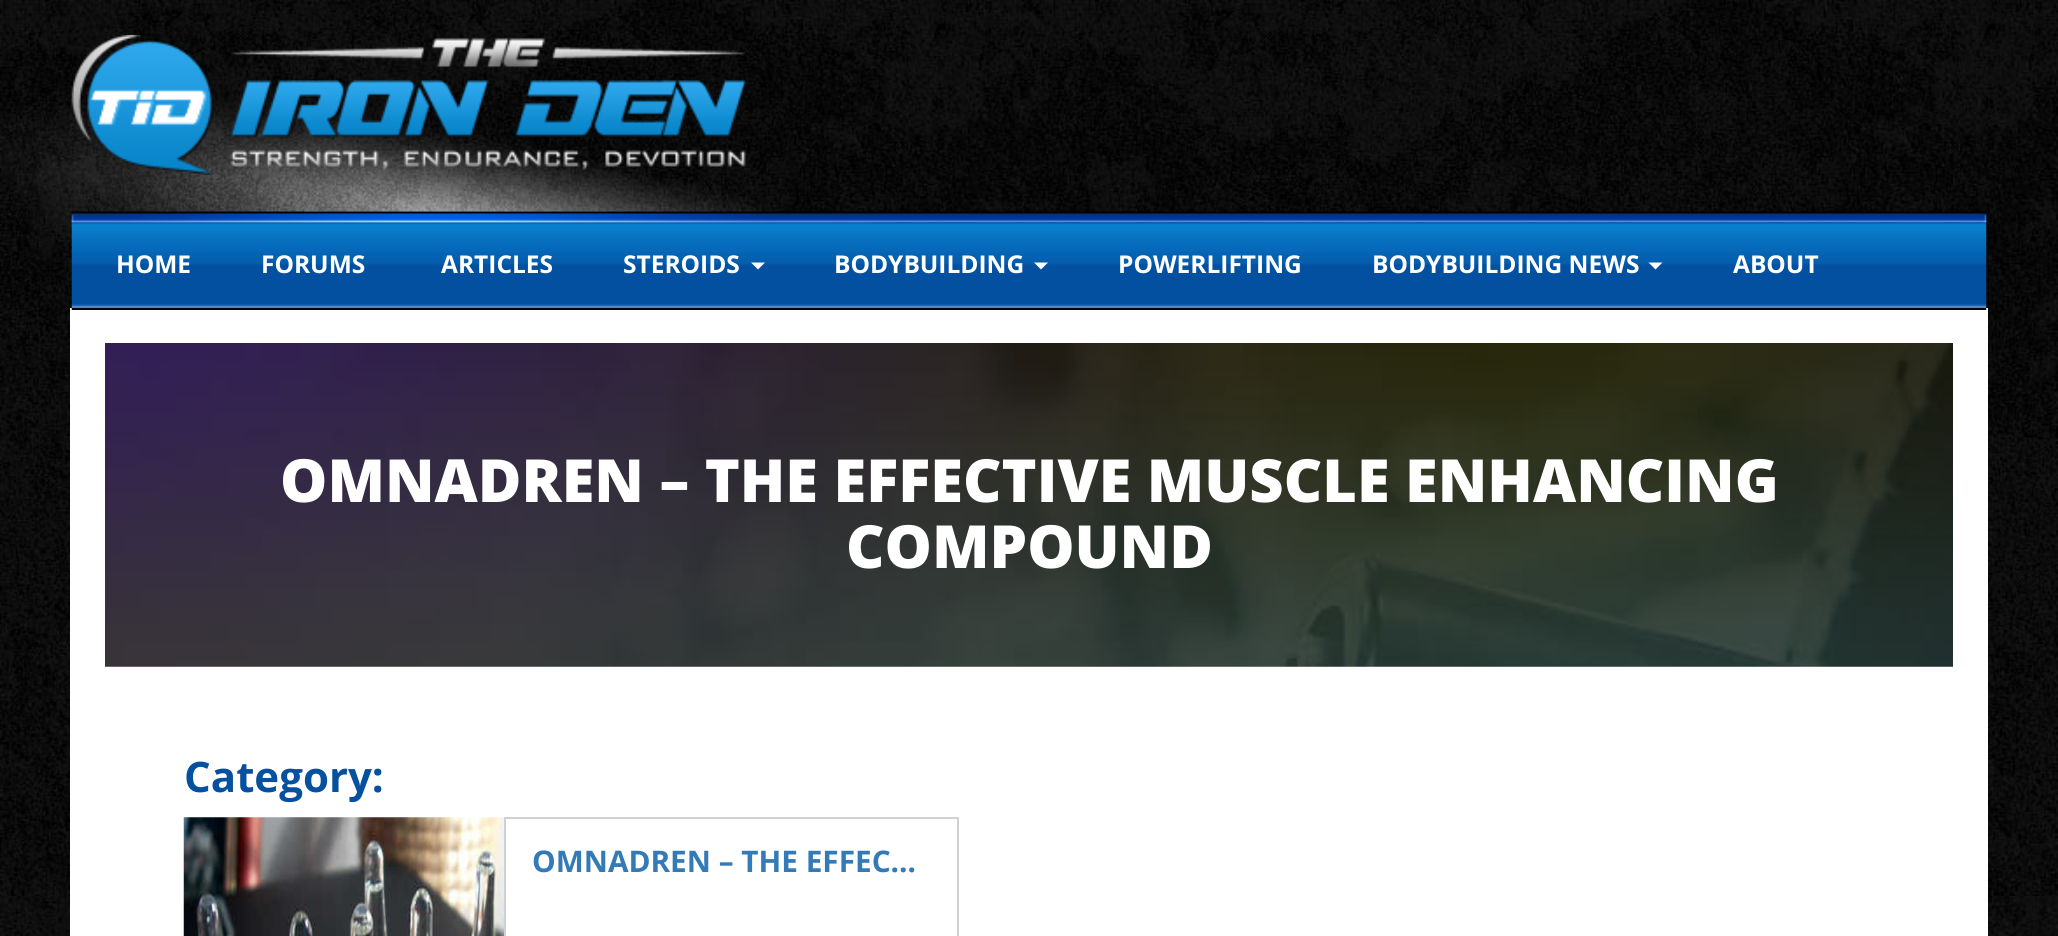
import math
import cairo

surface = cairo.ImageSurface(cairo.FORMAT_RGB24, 2058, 936)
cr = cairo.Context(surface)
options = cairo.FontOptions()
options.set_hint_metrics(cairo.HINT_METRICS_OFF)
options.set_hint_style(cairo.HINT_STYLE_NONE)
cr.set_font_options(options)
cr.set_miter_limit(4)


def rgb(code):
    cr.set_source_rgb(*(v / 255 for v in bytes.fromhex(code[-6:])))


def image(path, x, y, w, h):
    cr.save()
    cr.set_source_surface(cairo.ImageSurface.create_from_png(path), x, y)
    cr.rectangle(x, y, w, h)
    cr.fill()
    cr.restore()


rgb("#ffffff")
cr.paint()
image("img/1.png", 0, 896, 2058, 40)
image("img/2.png", 0, 0, 2058, 896)
image("img/3.png", 71, 35, 675, 140)
rgb("#ffffff")
cr.rectangle(70, 308, 1918, 628)
cr.fill()
image("img/7.png", 71, 222, 1916, 88)
image("img/4.png", 71, 211, 1916, 12)
image("img/5.png", 71, 211, 801, 12)
image("img/6.png", 1983, 213, 4, 10)
rgb("#000000")
cr.rectangle(72, 308, 1914, 2)
cr.fill()
rgb("#ffffff")
cr.new_path()
cr.move_to(751, 262.5)
cr.line_to(765, 262.5)
cr.line_to(758, 269.5)
cr.close_path()
cr.fill()
cr.new_path()
cr.move_to(1034, 262.5)
cr.line_to(1048, 262.5)
cr.line_to(1041, 269.5)
cr.close_path()
cr.fill()
cr.new_path()
cr.move_to(1648.5, 262.5)
cr.line_to(1662.5, 262.5)
cr.line_to(1655.5, 269.5)
cr.close_path()
cr.fill()
image("img/8.png", 105, 343, 1848, 324)
image("img/9.png", 183, 817, 321, 119)
cr.rectangle(505, 818, 453, 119)
rgb("#d1d1d1")
cr.stroke()
cr.select_font_face("Open Sans", cairo.FONT_SLANT_NORMAL, cairo.FONT_WEIGHT_BOLD)
cr.set_font_size(24.5)
rgb("#ffffff")
for x, y, s in [
    (116, 273, "HOME"),
    (261, 273, "FORUMS"),
    (441, 273, "ARTICLES"),
    (623, 273, "STEROIDS"),
    (834, 273, "BODYBUILDING"),
    (1118, 273, "POWERLIFTING"),
    (1372, 273, "BODYBUILDING NEWS"),
    (1733, 273, "ABOUT"),
]:
    cr.move_to(x, y)
    cr.show_text(s)
cr.select_font_face("Open Sans ExtraBold")
cr.set_font_size(59.5)
cr.move_to(280, 502)
cr.show_text("OMNADREN – THE EFFECTIVE MUSCLE ENHANCING")
cr.move_to(846, 568)
cr.show_text("COMPOUND")
cr.select_font_face("Open Sans", cairo.FONT_SLANT_NORMAL, cairo.FONT_WEIGHT_BOLD)
cr.set_font_size(42)
rgb("#05509f")
cr.move_to(184, 792)
cr.show_text("Category:")
cr.set_font_size(29.75)
rgb("#337ab7")
cr.move_to(532, 872)
cr.show_text("OMNADREN – THE EFFEC…")
surface.write_to_png("page.png")
